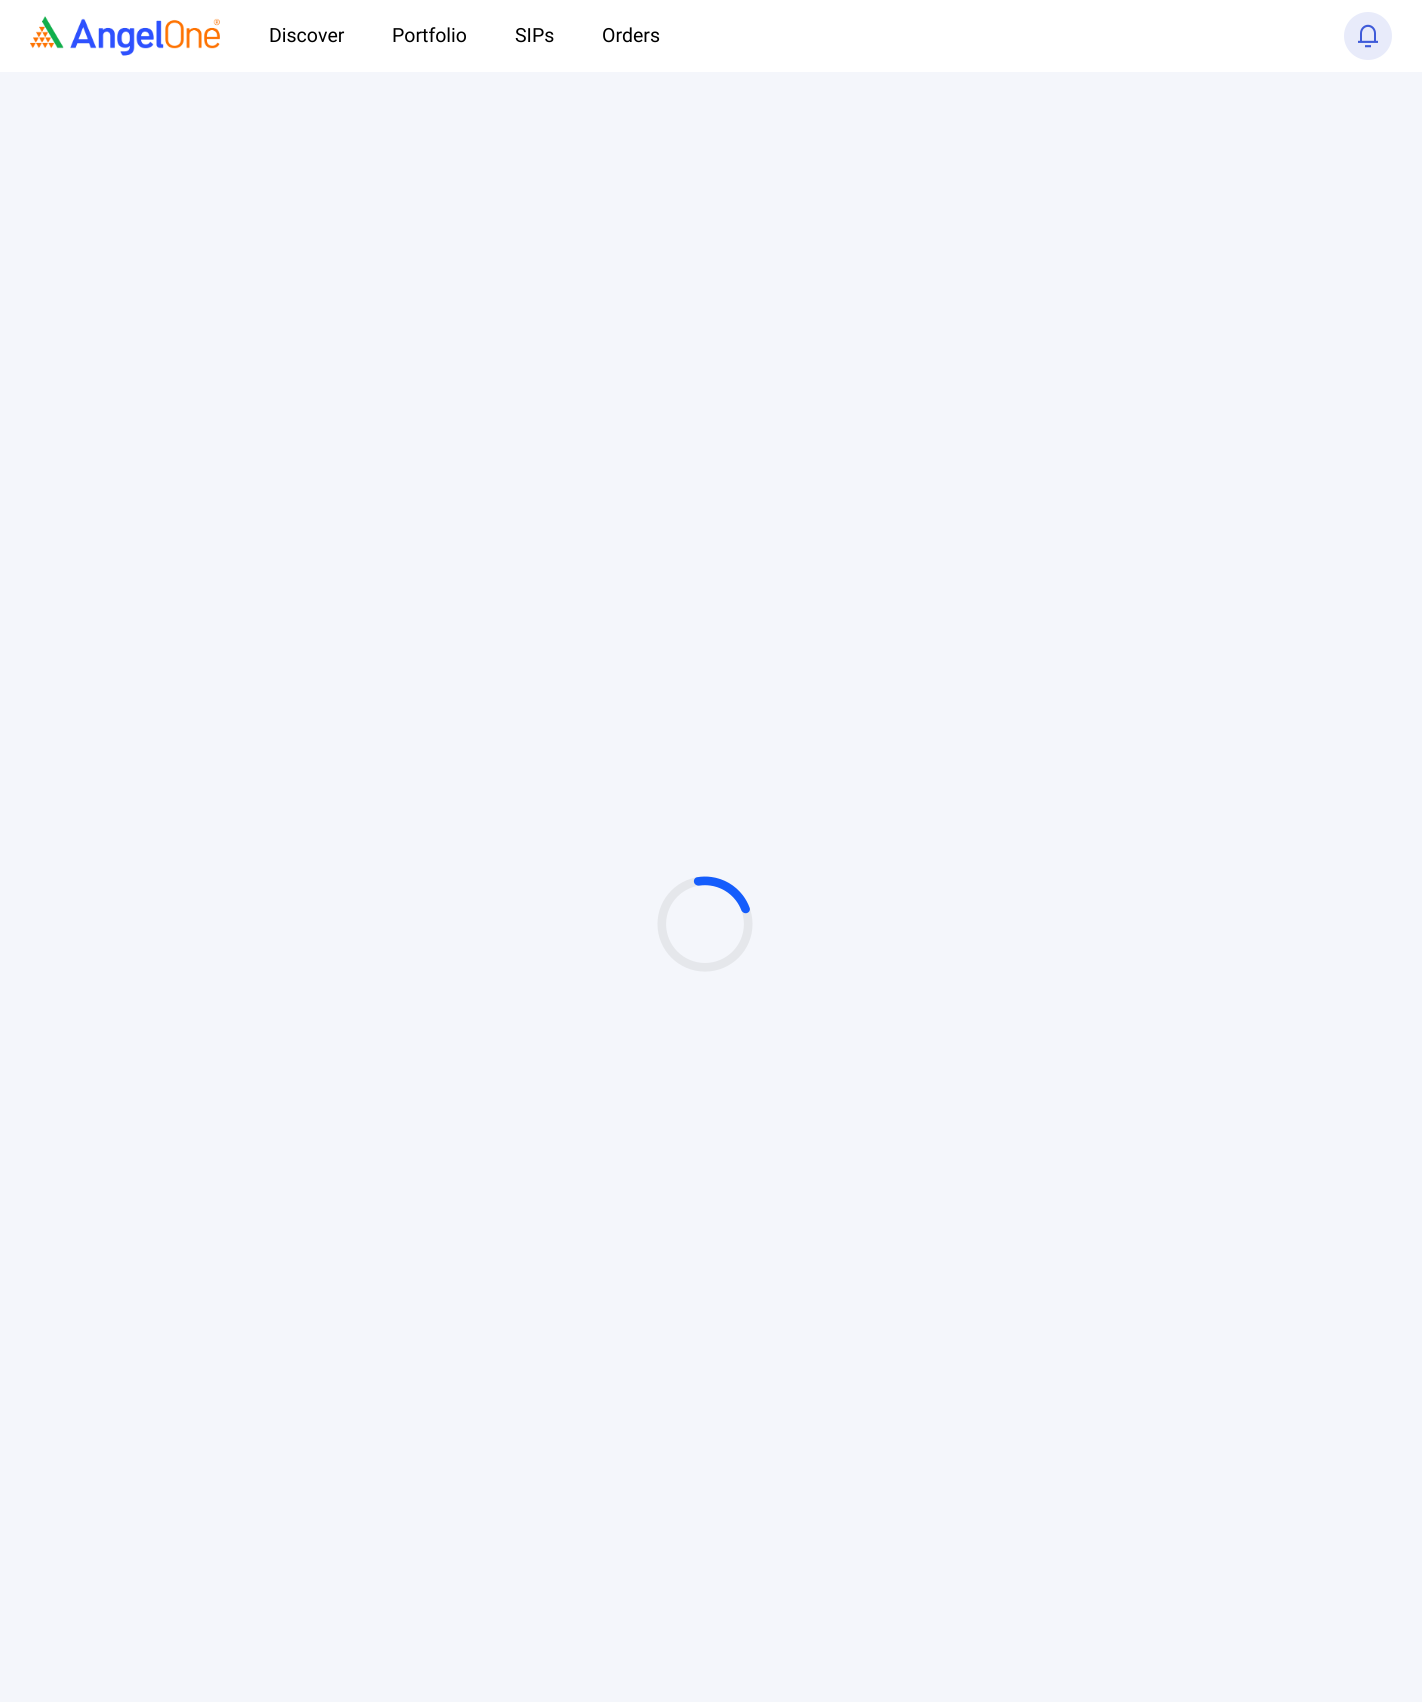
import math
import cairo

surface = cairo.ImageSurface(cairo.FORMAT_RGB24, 1422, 1702)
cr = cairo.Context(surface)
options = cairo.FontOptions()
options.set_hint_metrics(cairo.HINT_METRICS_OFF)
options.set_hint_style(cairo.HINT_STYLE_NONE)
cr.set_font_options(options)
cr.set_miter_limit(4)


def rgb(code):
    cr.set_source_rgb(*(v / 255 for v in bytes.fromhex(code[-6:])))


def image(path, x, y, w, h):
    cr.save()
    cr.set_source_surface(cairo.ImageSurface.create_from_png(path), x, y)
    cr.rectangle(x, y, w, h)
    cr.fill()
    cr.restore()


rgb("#f4f6fb")
cr.paint()
rgb("#ffffff")
cr.rectangle(0, 0, 1422, 72)
cr.fill()
image("img/1.png", 30, 16, 190, 40)
rgb("#e8ebfa")
cr.arc(1368, 36, 24, 0, 2 * math.pi)
cr.fill()
image("img/2.png", 1358, 24, 20, 24)
image("img/3.png", 657, 876, 96, 96)
cr.select_font_face("Roboto")
cr.set_font_size(19.5)
rgb("#000000")
for x, y, s in [
    (269, 42, "Discover"),
    (392, 42, "Portfolio"),
    (515, 42, "SIPs"),
    (602, 42, "Orders"),
]:
    cr.move_to(x, y)
    cr.show_text(s)
surface.write_to_png("page.png")
